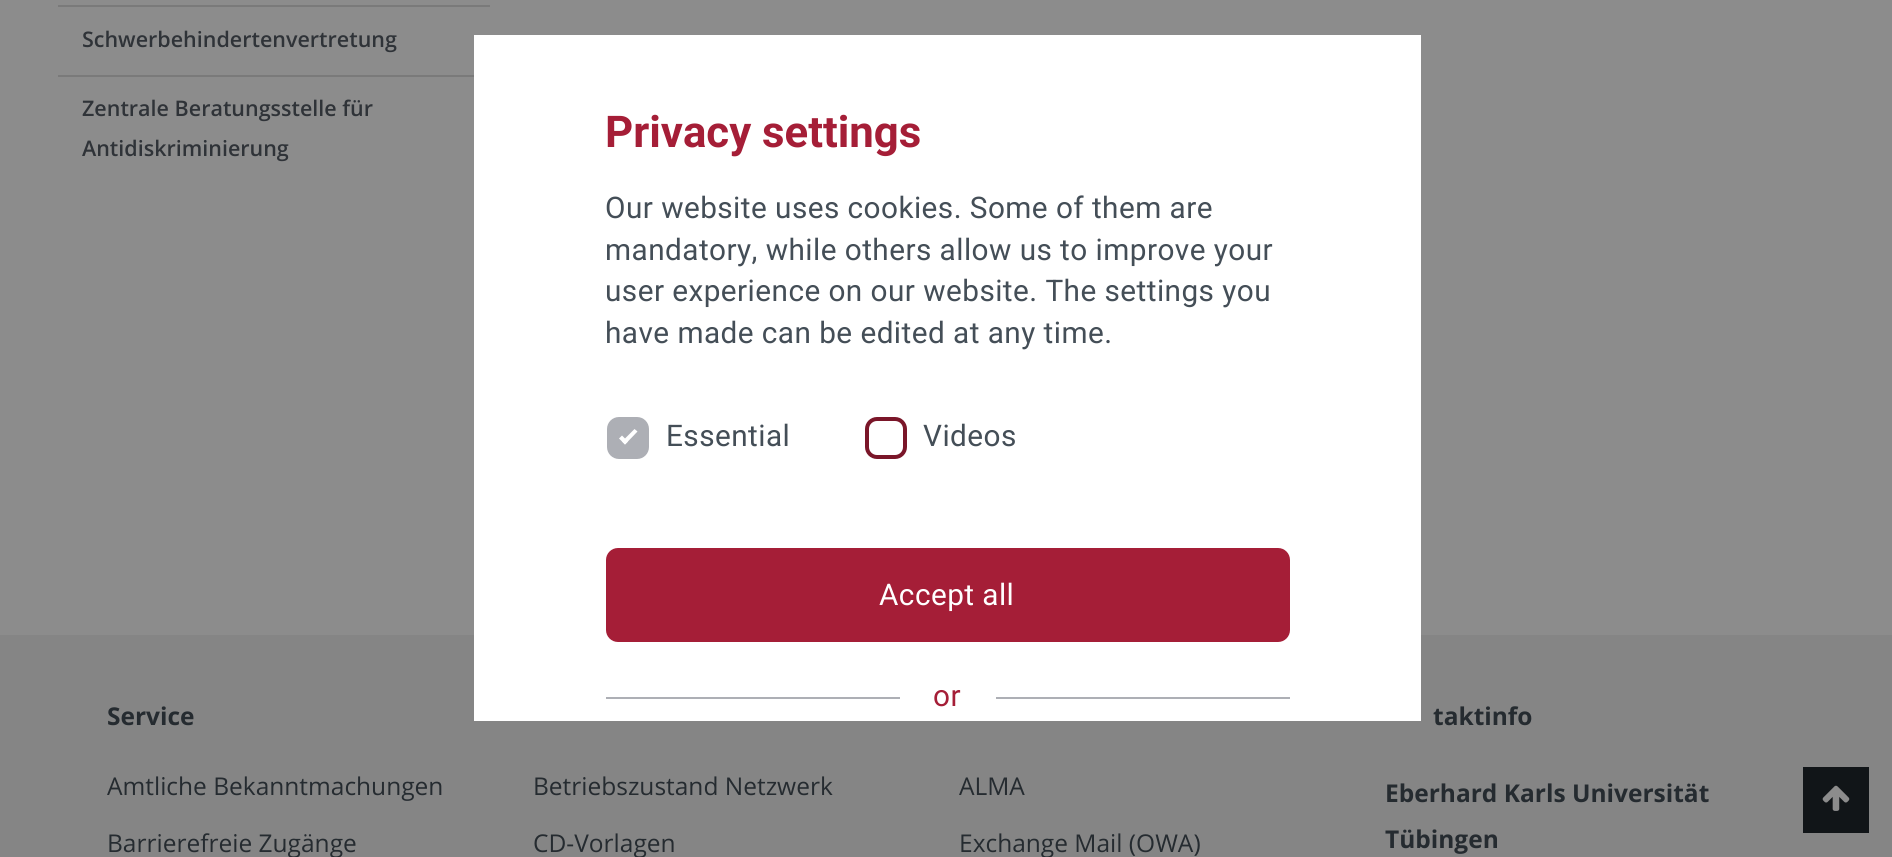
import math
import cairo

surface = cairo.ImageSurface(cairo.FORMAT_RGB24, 1892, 857)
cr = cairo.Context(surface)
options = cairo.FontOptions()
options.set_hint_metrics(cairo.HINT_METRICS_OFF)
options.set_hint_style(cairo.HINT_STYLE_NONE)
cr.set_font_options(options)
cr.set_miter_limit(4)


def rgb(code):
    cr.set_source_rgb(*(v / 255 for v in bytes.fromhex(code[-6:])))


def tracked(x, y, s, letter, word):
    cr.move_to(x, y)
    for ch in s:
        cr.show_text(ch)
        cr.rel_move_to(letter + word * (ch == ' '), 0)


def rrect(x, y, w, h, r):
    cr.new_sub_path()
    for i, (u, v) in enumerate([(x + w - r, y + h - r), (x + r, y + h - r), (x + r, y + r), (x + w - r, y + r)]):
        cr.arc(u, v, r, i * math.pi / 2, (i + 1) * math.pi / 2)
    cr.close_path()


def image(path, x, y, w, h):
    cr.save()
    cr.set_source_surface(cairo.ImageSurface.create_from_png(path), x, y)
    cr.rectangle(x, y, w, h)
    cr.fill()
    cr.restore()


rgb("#8c8c8c")
cr.paint()
for x, y, w, h, color in [
    (58, 5, 432, 2, "#7a7a7a"),
    (58, 75, 416, 2, "#7a7a7a"),
    (0, 635, 1892, 222, "#858585"),
    (1803, 767, 66, 66, "#111518"),
]:
    rgb(color)
    cr.rectangle(x, y, w, h)
    cr.fill()
image("img/1.png", 1822, 785, 28, 26)
rgb("#ffffff")
cr.rectangle(474, 35, 947, 686)
cr.fill()
rgb("#adafb5")
rrect(609, 419, 38, 38, 10)
cr.fill_preserve()
cr.set_line_width(4)
cr.stroke()
rgb("#ffffff")
cr.new_path()
cr.move_to(622, 441.5)
cr.line_to(634.5, 429)
cr.line_to(637.5, 431.5)
cr.line_to(625, 444.5)
cr.close_path()
cr.fill()
cr.new_path()
cr.move_to(619, 438.5)
cr.line_to(622, 435.5)
cr.line_to(628, 441.5)
cr.line_to(625, 444.5)
cr.close_path()
cr.fill()
rrect(867, 419, 38, 38, 10)
rgb("#7a1629")
cr.stroke()
rgb("#a51e37")
rrect(606, 548, 684, 94, 12)
cr.fill()
rgb("#adafb5")
cr.rectangle(606, 697, 294, 2)
cr.fill()
cr.rectangle(996, 697, 294, 2)
cr.fill()
cr.select_font_face("Open Sans SemiBold")
cr.set_font_size(21.5)
rgb("#2f3338")
for x, y, s in [
    (82, 47, "Schwerbehindertenvertretung"),
    (82, 116, "Zentrale Beratungsstelle für"),
    (82, 156, "Antidiskriminierung"),
]:
    cr.move_to(x, y)
    cr.show_text(s)
cr.select_font_face("Open Sans", cairo.FONT_SLANT_NORMAL, cairo.FONT_WEIGHT_BOLD)
cr.set_font_size(24.5)
rgb("#252b30")
cr.move_to(107, 725)
cr.show_text("Service")
cr.select_font_face("Open Sans")
for x, y, s in [
    (107, 795, "Amtliche Bekanntmachungen"),
    (107, 852, "Barrierefreie Zugänge"),
    (533, 795, "Betriebszustand Netzwerk"),
    (533, 852, "CD-Vorlagen"),
    (959, 795, "ALMA"),
    (959, 852, "Exchange Mail (OWA)"),
]:
    cr.move_to(x, y)
    cr.show_text(s)
cr.select_font_face("Open Sans", cairo.FONT_SLANT_NORMAL, cairo.FONT_WEIGHT_BOLD)
for x, y, s in [
    (1433, 725, "taktinfo"),
    (1385, 802, "Eberhard Karls Universität"),
    (1385, 848, "Tübingen"),
]:
    cr.move_to(x, y)
    cr.show_text(s)
cr.select_font_face("Roboto", cairo.FONT_SLANT_NORMAL, cairo.FONT_WEIGHT_BOLD)
cr.set_font_size(43.75)
rgb("#a51e37")
cr.move_to(605, 147)
cr.show_text("Privacy settings")
cr.select_font_face("Roboto")
cr.set_font_size(29.75)
rgb("#444e57")
for x, y, s in [
    (605, 218, "Our website uses cookies. Some of them are"),
    (605, 260, "mandatory, while others allow us to improve your"),
    (605, 301, "user experience on our website. The settings you"),
    (605, 343, "have made can be edited at any time."),
    (666, 446, "Essential"),
    (923, 446, "Videos"),
]:
    tracked(x, y, s, 0.45, 0)
rgb("#ffffff")
tracked(879, 605, "Accept all", 0.45, 0)
rgb("#a51e37")
tracked(933, 706, "or", 0.45, 0)
surface.write_to_png("page.png")
